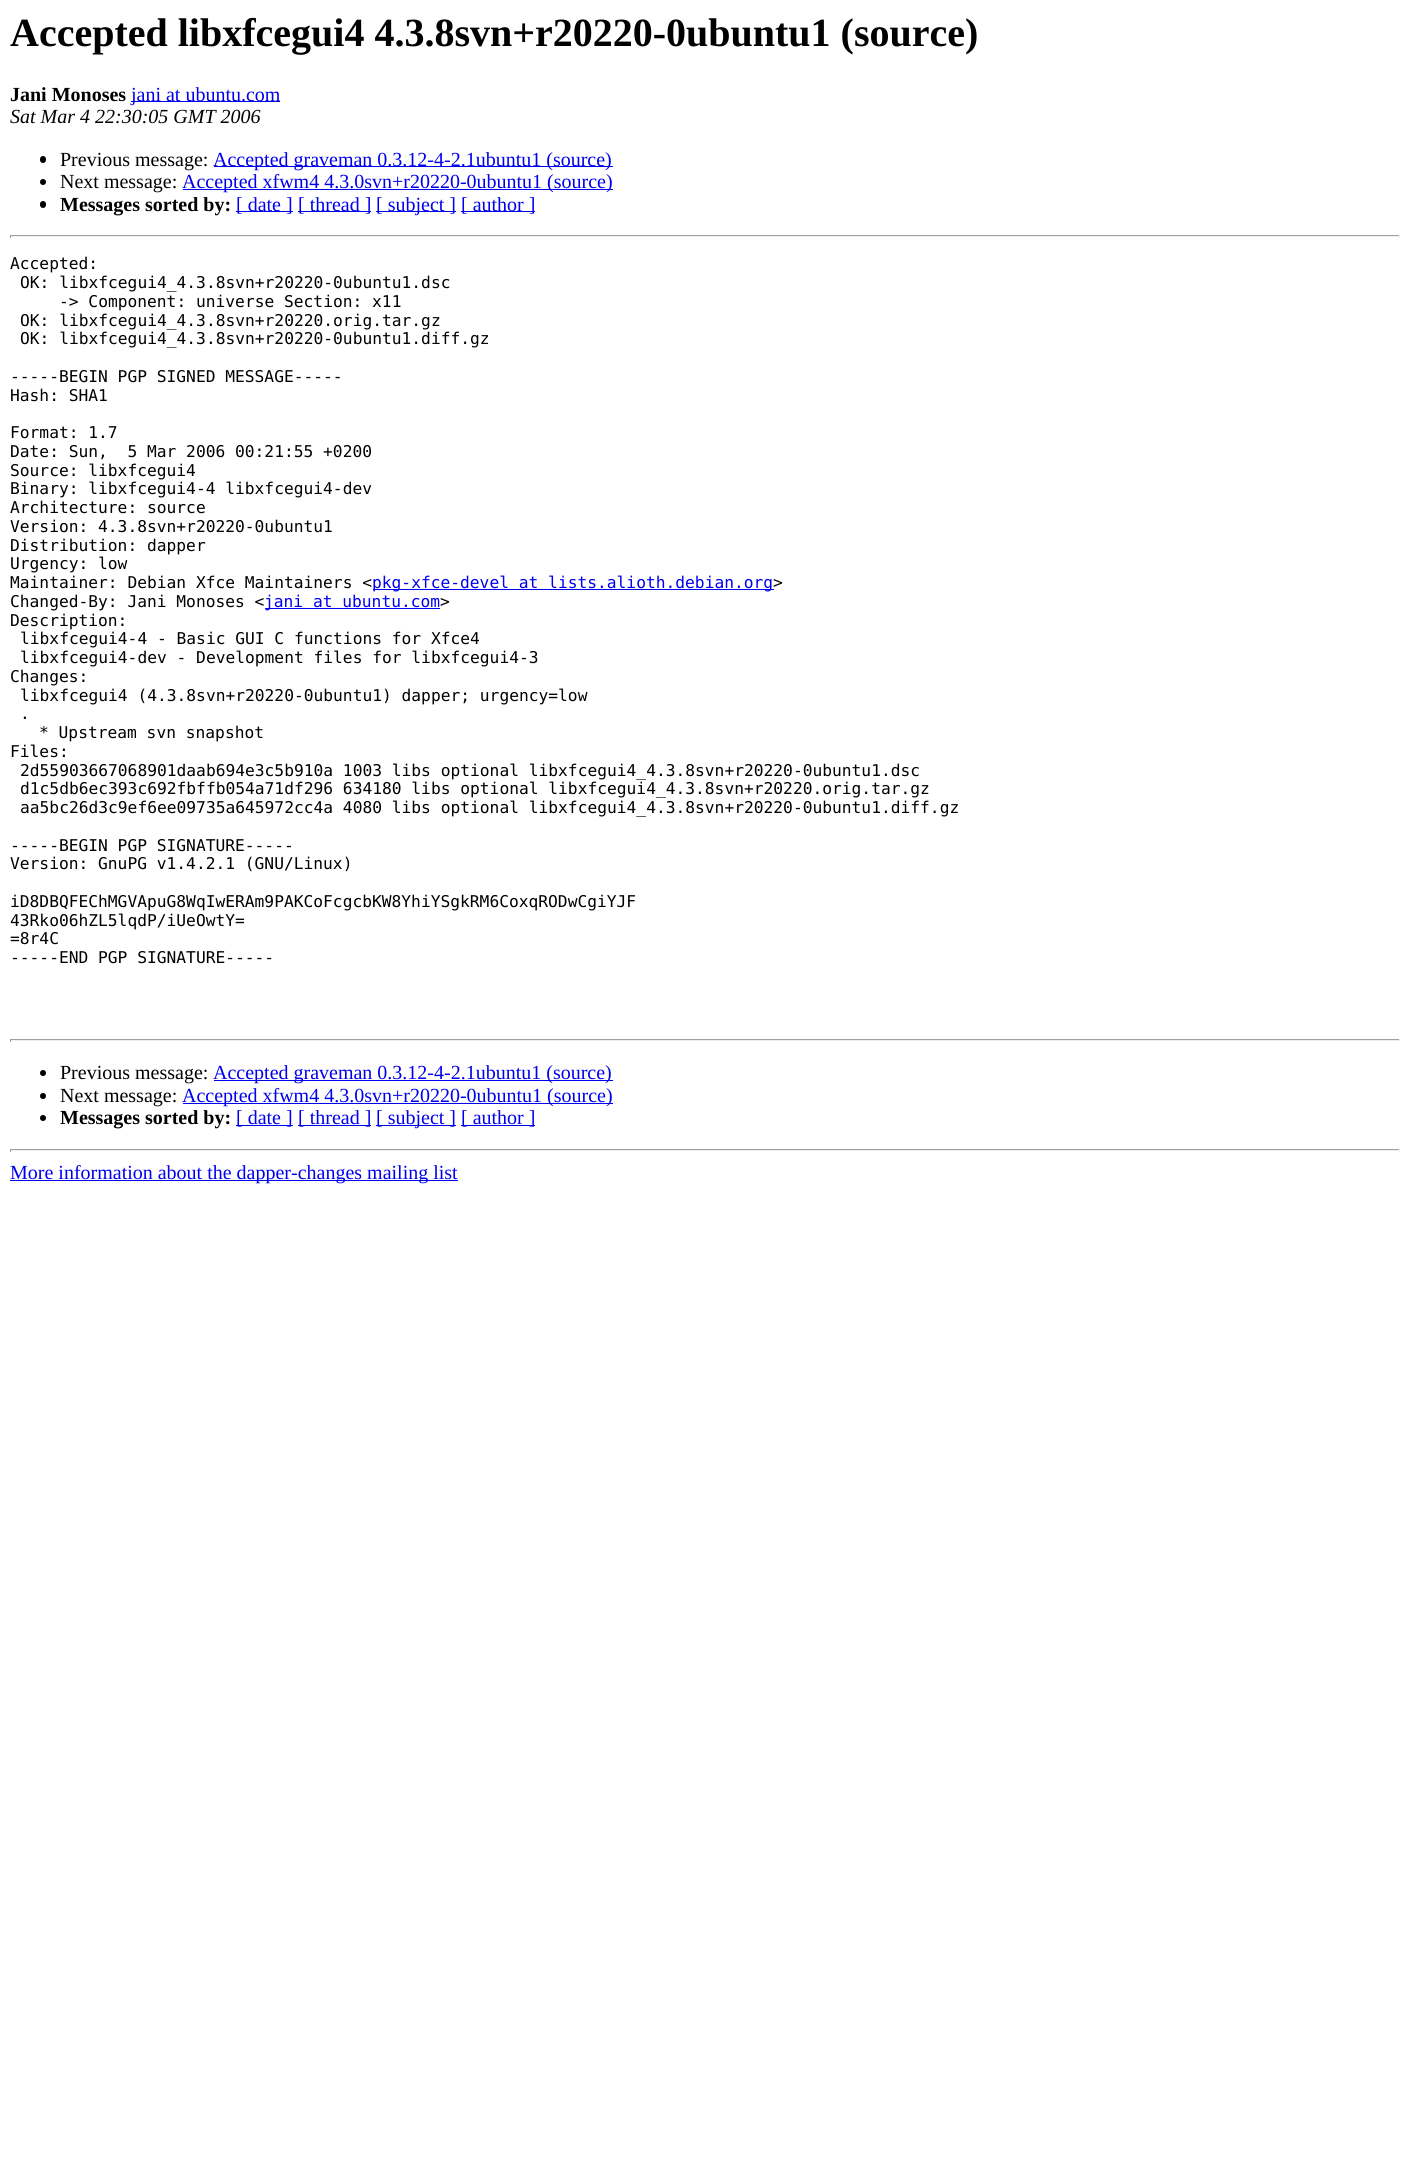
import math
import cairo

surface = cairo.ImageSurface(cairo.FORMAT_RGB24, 1409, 2175)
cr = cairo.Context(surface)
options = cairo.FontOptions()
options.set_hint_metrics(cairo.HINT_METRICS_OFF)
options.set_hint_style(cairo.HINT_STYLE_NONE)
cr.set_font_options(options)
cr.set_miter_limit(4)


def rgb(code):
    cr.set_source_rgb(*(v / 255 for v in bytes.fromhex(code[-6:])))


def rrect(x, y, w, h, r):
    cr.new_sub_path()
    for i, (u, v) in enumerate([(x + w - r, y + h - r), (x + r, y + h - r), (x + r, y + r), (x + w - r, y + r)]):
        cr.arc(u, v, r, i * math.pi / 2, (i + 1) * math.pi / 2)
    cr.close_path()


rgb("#ffffff")
cr.paint()
rgb("#0000ee")
cr.rectangle(131, 101, 149, 1)
cr.fill()
rgb("#000000")
rrect(40, 156, 6, 7, 3)
cr.fill()
rgb("#0000ee")
cr.rectangle(214, 166, 399, 1)
cr.fill()
rgb("#000000")
cr.arc(43, 182, 3, 0, 2 * math.pi)
cr.fill()
rgb("#0000ee")
cr.rectangle(183, 189, 430, 1)
cr.fill()
rgb("#000000")
rrect(40, 201, 6, 7, 3)
cr.fill()
for x, y, w, h, color in [
    (236, 211, 57, 1, "#0000ee"),
    (298, 211, 73, 1, "#0000ee"),
    (376, 211, 80, 1, "#0000ee"),
    (461, 211, 74, 1, "#0000ee"),
    (10, 235, 1390, 1, "#9f9f9f"),
    (1399, 235, 1, 3, "#eeeeee"),
    (10, 236, 1390, 1, "#eeeeee"),
    (10, 235, 1, 3, "#9f9f9f"),
    (373, 589, 401, 1, "#0000ee"),
    (265, 608, 175, 1, "#0000ee"),
    (10, 1039, 1390, 1, "#9f9f9f"),
    (1399, 1039, 1, 3, "#eeeeee"),
    (10, 1040, 1390, 1, "#eeeeee"),
    (10, 1039, 1, 3, "#9f9f9f"),
]:
    rgb(color)
    cr.rectangle(x, y, w, h)
    cr.fill()
rgb("#000000")
cr.arc(43, 1073, 3, 0, 2 * math.pi)
cr.fill()
rgb("#0000ee")
cr.rectangle(214, 1080, 399, 1)
cr.fill()
rgb("#000000")
cr.arc(43, 1096, 3, 0, 2 * math.pi)
cr.fill()
rgb("#0000ee")
cr.rectangle(183, 1103, 430, 1)
cr.fill()
rgb("#000000")
cr.arc(43, 1118, 3, 0, 2 * math.pi)
cr.fill()
for x, y, w, h, color in [
    (236, 1125, 57, 1, "#0000ee"),
    (298, 1125, 73, 1, "#0000ee"),
    (376, 1125, 80, 1, "#0000ee"),
    (461, 1125, 74, 1, "#0000ee"),
    (10, 1149, 1390, 1, "#9f9f9f"),
    (1399, 1149, 1, 3, "#eeeeee"),
    (10, 1150, 1390, 1, "#eeeeee"),
    (10, 1149, 1, 3, "#9f9f9f"),
    (10, 1180, 448, 1, "#0000ee"),
]:
    rgb(color)
    cr.rectangle(x, y, w, h)
    cr.fill()
cr.select_font_face("Liberation Serif", cairo.FONT_SLANT_NORMAL, cairo.FONT_WEIGHT_BOLD)
cr.set_font_size(40)
rgb("#000000")
cr.move_to(10, 46)
cr.show_text("Accepted libxfcegui4 4.3.8svn+r20220-0ubuntu1 (source)")
cr.set_font_size(20)
cr.move_to(10, 101)
cr.show_text("Jani Monoses")
cr.select_font_face("Liberation Serif")
rgb("#0000ee")
cr.move_to(131, 101)
cr.show_text("jani at ubuntu.com")
cr.select_font_face("Liberation Serif", cairo.FONT_SLANT_ITALIC)
rgb("#000000")
cr.move_to(10, 123)
cr.show_text("Sat Mar 4 22:30:05 GMT 2006")
cr.select_font_face("Liberation Serif")
cr.move_to(60, 166)
cr.show_text("Previous message:")
rgb("#0000ee")
cr.move_to(213, 166)
cr.show_text("Accepted graveman 0.3.12-4-2.1ubuntu1 (source)")
rgb("#000000")
cr.move_to(60, 188)
cr.show_text("Next message:")
rgb("#0000ee")
cr.move_to(182, 188)
cr.show_text("Accepted xfwm4 4.3.0svn+r20220-0ubuntu1 (source)")
cr.select_font_face("Liberation Serif", cairo.FONT_SLANT_NORMAL, cairo.FONT_WEIGHT_BOLD)
rgb("#000000")
cr.move_to(60, 211)
cr.show_text("Messages sorted by:")
cr.select_font_face("Liberation Serif")
rgb("#0000ee")
for x, y, s in [
    (236, 211, "[ date ]"),
    (298, 211, "[ thread ]"),
    (376, 211, "[ subject ]"),
    (461, 211, "[ author ]"),
]:
    cr.move_to(x, y)
    cr.show_text(s)
cr.select_font_face("DejaVu Sans Mono")
cr.set_font_size(16.25)
rgb("#000000")
for x, y, s in [
    (10, 269, "Accepted:"),
    (20, 288, "OK: libxfcegui4_4.3.8svn+r20220-0ubuntu1.dsc"),
    (59, 307, "-> Component: universe Section: x11"),
    (20, 326, "OK: libxfcegui4_4.3.8svn+r20220.orig.tar.gz"),
    (20, 344, "OK: libxfcegui4_4.3.8svn+r20220-0ubuntu1.diff.gz"),
    (10, 382, "-----BEGIN PGP SIGNED MESSAGE-----"),
    (10, 401, "Hash: SHA1"),
    (10, 438, "Format: 1.7"),
    (10, 457, "Date: Sun,  5 Mar 2006 00:21:55 +0200"),
    (10, 476, "Source: libxfcegui4"),
    (10, 494, "Binary: libxfcegui4-4 libxfcegui4-dev"),
    (10, 513, "Architecture: source"),
    (10, 532, "Version: 4.3.8svn+r20220-0ubuntu1"),
    (10, 551, "Distribution: dapper"),
    (10, 569, "Urgency: low"),
    (10, 588, "Maintainer: Debian Xfce Maintainers <"),
]:
    cr.move_to(x, y)
    cr.show_text(s)
rgb("#0000ee")
cr.move_to(372, 588)
cr.show_text("pkg-xfce-devel at lists.alioth.debian.org")
rgb("#000000")
cr.move_to(773, 588)
cr.show_text(">")
cr.move_to(10, 607)
cr.show_text("Changed-By: Jani Monoses <")
rgb("#0000ee")
cr.move_to(264, 607)
cr.show_text("jani at ubuntu.com")
rgb("#000000")
for x, y, s in [
    (440, 607, ">"),
    (10, 626, "Description:"),
    (20, 644, "libxfcegui4-4 - Basic GUI C functions for Xfce4"),
    (20, 663, "libxfcegui4-dev - Development files for libxfcegui4-3"),
    (10, 682, "Changes:"),
    (20, 701, "libxfcegui4 (4.3.8svn+r20220-0ubuntu1) dapper; urgency=low"),
    (20, 719, "."),
    (39, 738, "* Upstream svn snapshot"),
    (10, 757, "Files:"),
    (20, 776, "2d55903667068901daab694e3c5b910a 1003 libs optional libxfcegui4_4.3.8svn+r20220-0ubuntu1.dsc"),
    (20, 794, "d1c5db6ec393c692fbffb054a71df296 634180 libs optional libxfcegui4_4.3.8svn+r20220.orig.tar.gz"),
    (20, 813, "aa5bc26d3c9ef6ee09735a645972cc4a 4080 libs optional libxfcegui4_4.3.8svn+r20220-0ubuntu1.diff.gz"),
    (10, 851, "-----BEGIN PGP SIGNATURE-----"),
    (10, 869, "Version: GnuPG v1.4.2.1 (GNU/Linux)"),
    (10, 907, "iD8DBQFEChMGVApuG8WqIwERAm9PAKCoFcgcbKW8YhiYSgkRM6CoxqRODwCgiYJF"),
    (10, 926, "43Rko06hZL5lqdP/iUeOwtY="),
    (10, 944, "=8r4C"),
    (10, 963, "-----END PGP SIGNATURE-----"),
]:
    cr.move_to(x, y)
    cr.show_text(s)
cr.select_font_face("Liberation Serif")
cr.set_font_size(20)
cr.move_to(60, 1079)
cr.show_text("Previous message:")
rgb("#0000ee")
cr.move_to(213, 1079)
cr.show_text("Accepted graveman 0.3.12-4-2.1ubuntu1 (source)")
rgb("#000000")
cr.move_to(60, 1102)
cr.show_text("Next message:")
rgb("#0000ee")
cr.move_to(182, 1102)
cr.show_text("Accepted xfwm4 4.3.0svn+r20220-0ubuntu1 (source)")
cr.select_font_face("Liberation Serif", cairo.FONT_SLANT_NORMAL, cairo.FONT_WEIGHT_BOLD)
rgb("#000000")
cr.move_to(60, 1124)
cr.show_text("Messages sorted by:")
cr.select_font_face("Liberation Serif")
rgb("#0000ee")
for x, y, s in [
    (236, 1124, "[ date ]"),
    (298, 1124, "[ thread ]"),
    (376, 1124, "[ subject ]"),
    (461, 1124, "[ author ]"),
    (10, 1179, "More information about the dapper-changes mailing list"),
]:
    cr.move_to(x, y)
    cr.show_text(s)
surface.write_to_png("page.png")
